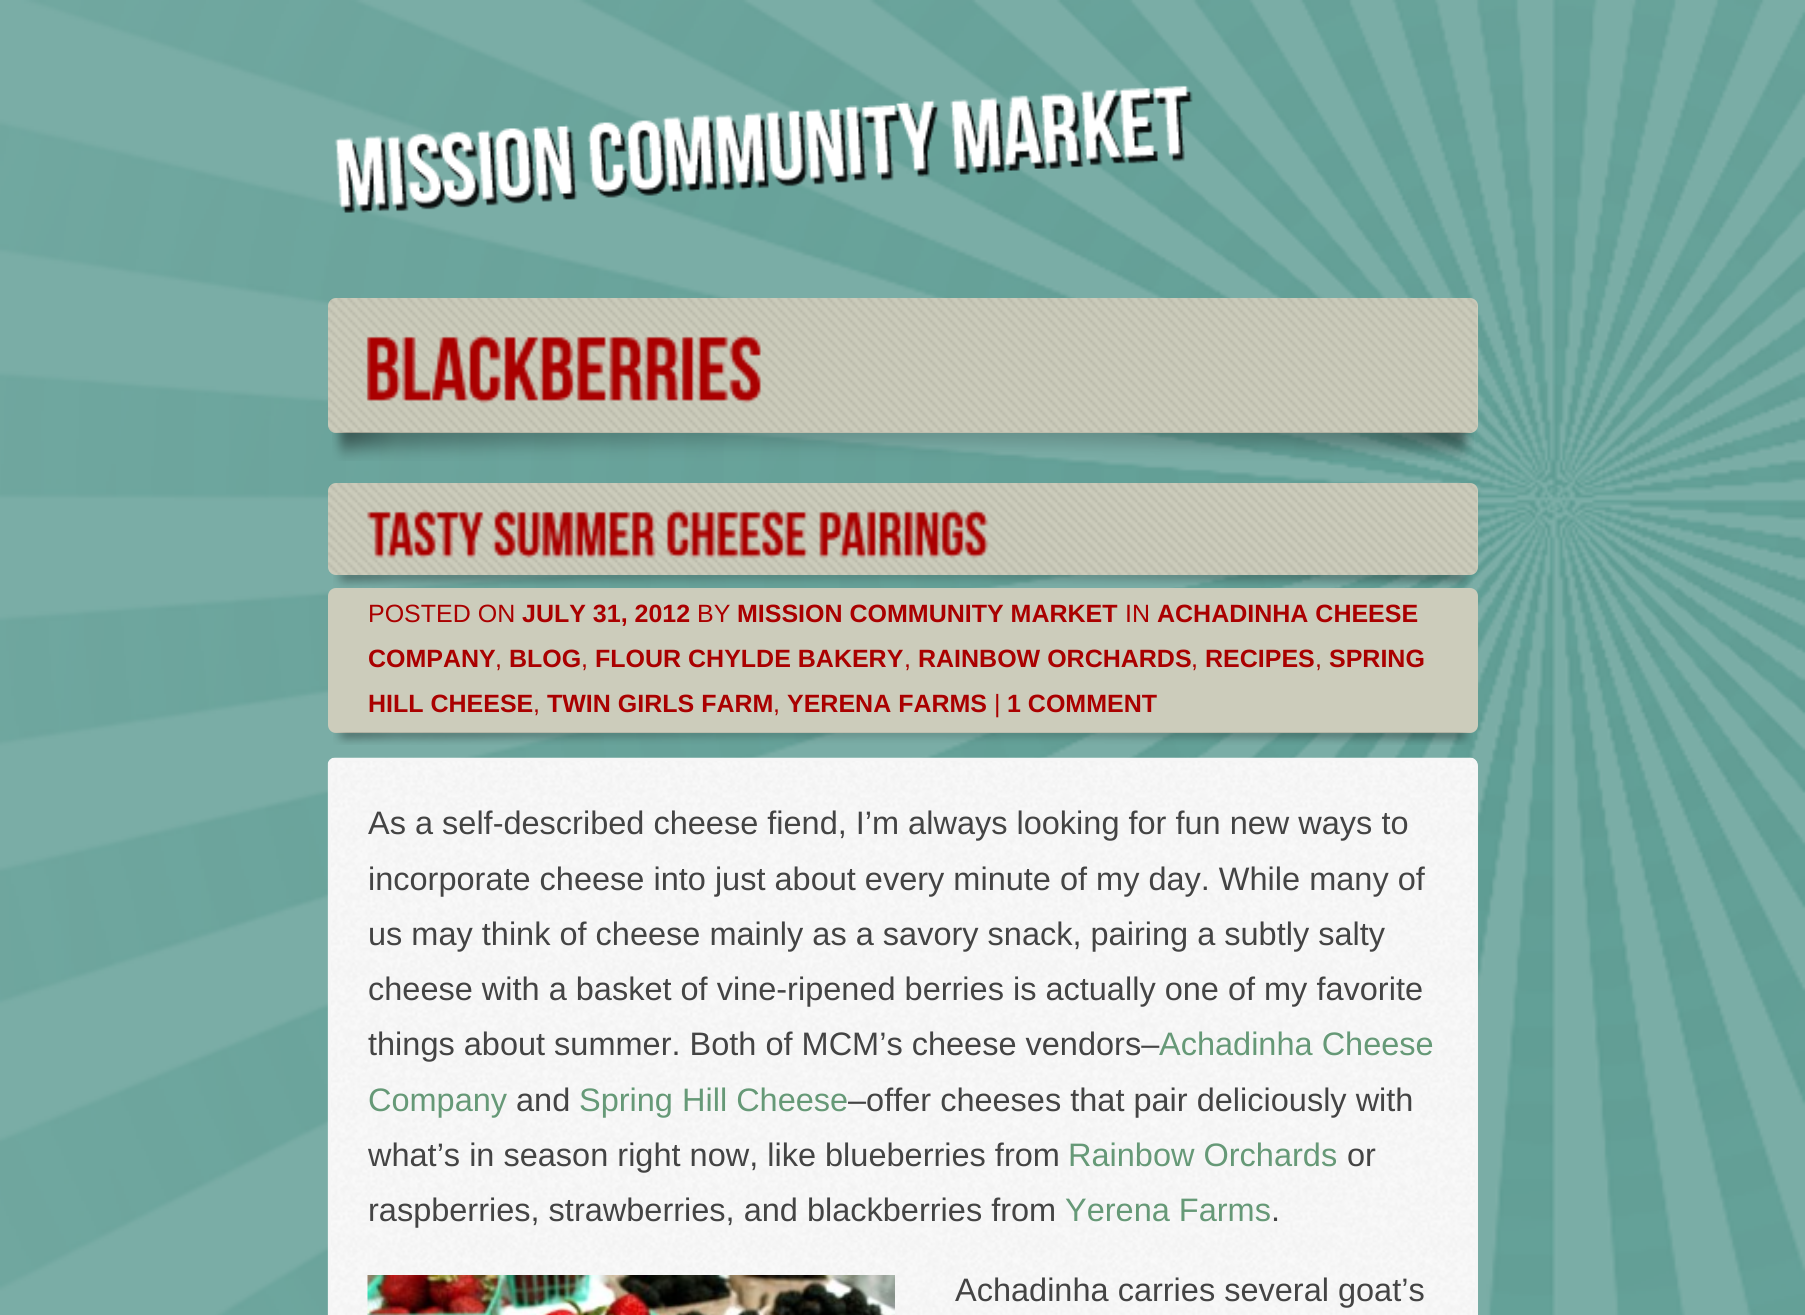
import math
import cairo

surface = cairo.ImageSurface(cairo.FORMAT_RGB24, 1805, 1315)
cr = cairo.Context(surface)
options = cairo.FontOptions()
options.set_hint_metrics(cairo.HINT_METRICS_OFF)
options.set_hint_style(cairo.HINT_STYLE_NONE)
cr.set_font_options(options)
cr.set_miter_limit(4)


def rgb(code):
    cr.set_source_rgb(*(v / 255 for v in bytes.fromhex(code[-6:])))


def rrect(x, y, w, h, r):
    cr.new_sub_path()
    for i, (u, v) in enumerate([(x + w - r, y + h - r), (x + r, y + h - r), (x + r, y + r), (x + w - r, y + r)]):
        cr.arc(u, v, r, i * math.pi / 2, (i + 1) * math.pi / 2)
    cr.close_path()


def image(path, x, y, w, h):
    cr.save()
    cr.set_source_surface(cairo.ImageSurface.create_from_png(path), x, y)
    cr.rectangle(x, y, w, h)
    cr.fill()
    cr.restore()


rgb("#ffffff")
cr.paint()
image("img/1.png", 0, 0, 1805, 1315)
image("img/2.png", 334, 85, 859, 128)
rgb("#ccccbb")
rrect(328, 298, 1150, 135, 8)
cr.fill()
image("img/3.png", 328, 298, 1149, 134)
image("img/4.png", 366, 334, 396, 70)
image("img/5.png", 332, 432, 1142, 29)
rrect(328, 483, 1150, 92, 8)
cr.fill()
image("img/6.png", 328, 483, 1149, 92)
image("img/7.png", 366, 509, 118, 50)
image("img/8.png", 492, 509, 164, 50)
image("img/9.png", 666, 509, 142, 50)
image("img/10.png", 819, 509, 170, 50)
image("img/11.png", 333, 575, 1140, 13)
rrect(328, 588, 1150, 145, 8)
cr.fill()
image("img/12.png", 333, 732, 1140, 13)
image("img/13.png", 327, 757, 1151, 558)
rrect(329.5, 759.5, 1147, 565, 6.5)
rgb("#f6f6f6")
cr.set_line_width(3)
cr.stroke()
image("img/14.png", 367, 1275, 528, 40)
cr.select_font_face("Liberation Sans")
cr.set_font_size(25)
rgb("#aa0000")
cr.move_to(368, 622)
cr.show_text("POSTED ON")
cr.select_font_face("Liberation Sans", cairo.FONT_SLANT_NORMAL, cairo.FONT_WEIGHT_BOLD)
cr.move_to(522, 622)
cr.show_text("JULY 31, 2012")
cr.select_font_face("Liberation Sans")
cr.move_to(697, 622)
cr.show_text("BY")
cr.select_font_face("Liberation Sans", cairo.FONT_SLANT_NORMAL, cairo.FONT_WEIGHT_BOLD)
cr.move_to(737, 622)
cr.show_text("MISSION COMMUNITY MARKET")
cr.select_font_face("Liberation Sans")
cr.move_to(1125, 622)
cr.show_text("IN")
cr.select_font_face("Liberation Sans", cairo.FONT_SLANT_NORMAL, cairo.FONT_WEIGHT_BOLD)
cr.move_to(1157, 622)
cr.show_text("ACHADINHA CHEESE")
cr.move_to(368, 667)
cr.show_text("COMPANY")
cr.select_font_face("Liberation Sans")
cr.move_to(495, 667)
cr.show_text(",")
cr.select_font_face("Liberation Sans", cairo.FONT_SLANT_NORMAL, cairo.FONT_WEIGHT_BOLD)
cr.move_to(509, 667)
cr.show_text("BLOG")
cr.select_font_face("Liberation Sans")
cr.move_to(581, 667)
cr.show_text(",")
cr.select_font_face("Liberation Sans", cairo.FONT_SLANT_NORMAL, cairo.FONT_WEIGHT_BOLD)
cr.move_to(595, 667)
cr.show_text("FLOUR CHYLDE BAKERY")
cr.select_font_face("Liberation Sans")
cr.move_to(904, 667)
cr.show_text(",")
cr.select_font_face("Liberation Sans", cairo.FONT_SLANT_NORMAL, cairo.FONT_WEIGHT_BOLD)
cr.move_to(918, 667)
cr.show_text("RAINBOW ORCHARDS")
cr.select_font_face("Liberation Sans")
cr.move_to(1191, 667)
cr.show_text(",")
cr.select_font_face("Liberation Sans", cairo.FONT_SLANT_NORMAL, cairo.FONT_WEIGHT_BOLD)
cr.move_to(1205, 667)
cr.show_text("RECIPES")
cr.select_font_face("Liberation Sans")
cr.move_to(1315, 667)
cr.show_text(",")
cr.select_font_face("Liberation Sans", cairo.FONT_SLANT_NORMAL, cairo.FONT_WEIGHT_BOLD)
cr.move_to(1329, 667)
cr.show_text("SPRING")
cr.move_to(368, 712)
cr.show_text("HILL CHEESE")
cr.select_font_face("Liberation Sans")
cr.move_to(533, 712)
cr.show_text(",")
cr.select_font_face("Liberation Sans", cairo.FONT_SLANT_NORMAL, cairo.FONT_WEIGHT_BOLD)
cr.move_to(547, 712)
cr.show_text("TWIN GIRLS FARM")
cr.select_font_face("Liberation Sans")
cr.move_to(773, 712)
cr.show_text(",")
cr.select_font_face("Liberation Sans", cairo.FONT_SLANT_NORMAL, cairo.FONT_WEIGHT_BOLD)
cr.move_to(787, 712)
cr.show_text("YERENA FARMS")
cr.select_font_face("Liberation Sans")
cr.move_to(994, 712)
cr.show_text("|")
cr.select_font_face("Liberation Sans", cairo.FONT_SLANT_NORMAL, cairo.FONT_WEIGHT_BOLD)
cr.move_to(1007, 712)
cr.show_text("1 COMMENT")
cr.select_font_face("Liberation Sans")
cr.set_font_size(32.5)
rgb("#444444")
for x, y, s in [
    (368, 834, "As a self-described cheese fiend, I’m always looking for fun new ways to"),
    (368, 890, "incorporate cheese into just about every minute of my day. While many of"),
    (368, 945, "us may think of cheese mainly as a savory snack, pairing a subtly salty"),
    (368, 1000, "cheese with a basket of vine-ripened berries is actually one of my favorite"),
    (368, 1055, "things about summer. Both of MCM’s cheese vendors–"),
]:
    cr.move_to(x, y)
    cr.show_text(s)
rgb("#669977")
cr.move_to(1159, 1055)
cr.show_text("Achadinha Cheese")
cr.move_to(368, 1111)
cr.show_text("Company")
rgb("#444444")
cr.move_to(516, 1111)
cr.show_text("and")
rgb("#669977")
cr.move_to(579, 1111)
cr.show_text("Spring Hill Cheese")
rgb("#444444")
cr.move_to(848, 1111)
cr.show_text("–offer cheeses that pair deliciously with")
cr.move_to(368, 1166)
cr.show_text("what’s in season right now, like blueberries from")
rgb("#669977")
cr.move_to(1068, 1166)
cr.show_text("Rainbow Orchards")
rgb("#444444")
cr.move_to(1347, 1166)
cr.show_text("or")
cr.move_to(368, 1221)
cr.show_text("raspberries, strawberries, and blackberries from")
rgb("#669977")
cr.move_to(1065, 1221)
cr.show_text("Yerena Farms")
rgb("#444444")
cr.move_to(1271, 1221)
cr.show_text(".")
cr.move_to(955, 1301)
cr.show_text("Achadinha carries several goat’s")
surface.write_to_png("page.png")
